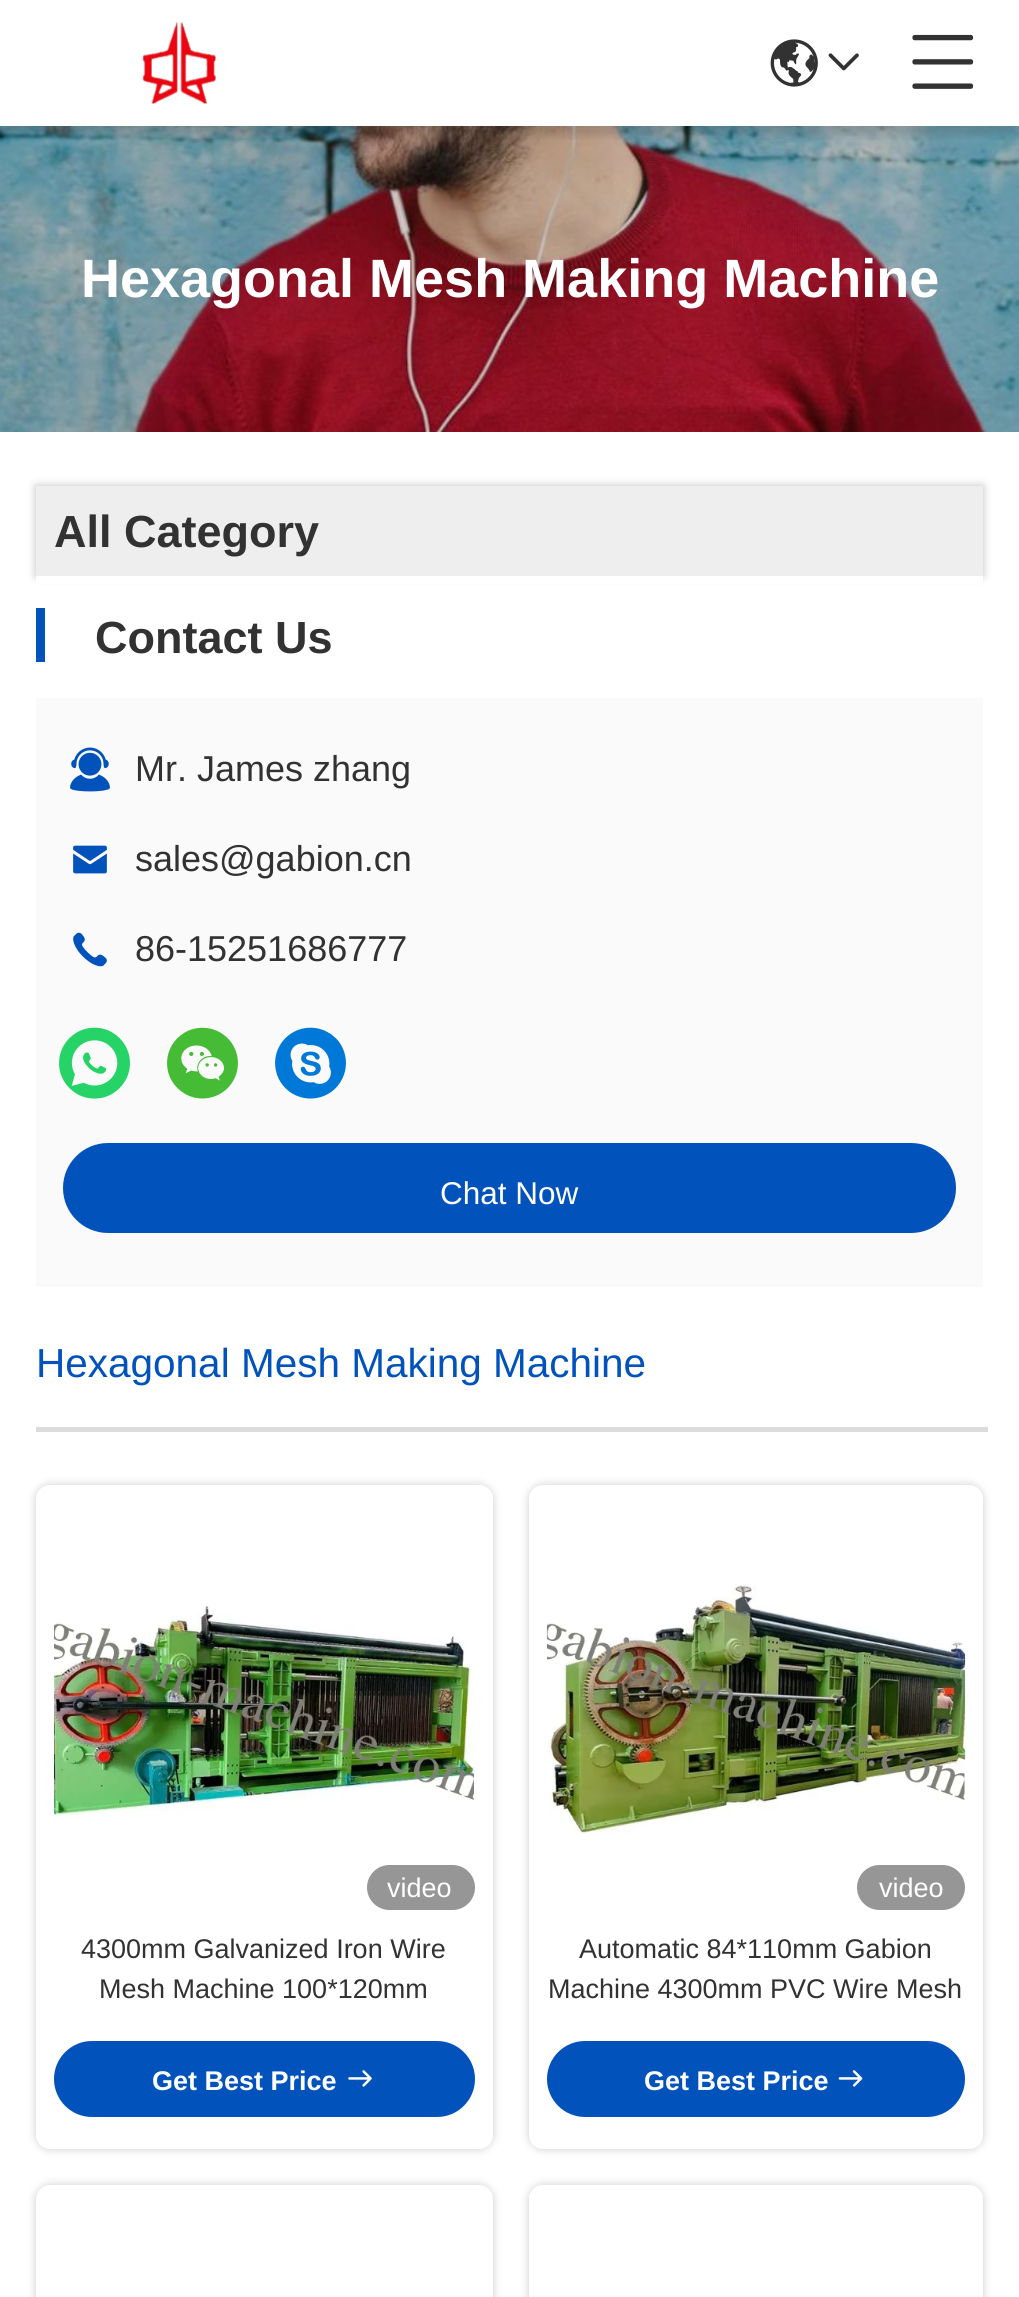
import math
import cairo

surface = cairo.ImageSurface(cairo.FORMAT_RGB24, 1019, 2297)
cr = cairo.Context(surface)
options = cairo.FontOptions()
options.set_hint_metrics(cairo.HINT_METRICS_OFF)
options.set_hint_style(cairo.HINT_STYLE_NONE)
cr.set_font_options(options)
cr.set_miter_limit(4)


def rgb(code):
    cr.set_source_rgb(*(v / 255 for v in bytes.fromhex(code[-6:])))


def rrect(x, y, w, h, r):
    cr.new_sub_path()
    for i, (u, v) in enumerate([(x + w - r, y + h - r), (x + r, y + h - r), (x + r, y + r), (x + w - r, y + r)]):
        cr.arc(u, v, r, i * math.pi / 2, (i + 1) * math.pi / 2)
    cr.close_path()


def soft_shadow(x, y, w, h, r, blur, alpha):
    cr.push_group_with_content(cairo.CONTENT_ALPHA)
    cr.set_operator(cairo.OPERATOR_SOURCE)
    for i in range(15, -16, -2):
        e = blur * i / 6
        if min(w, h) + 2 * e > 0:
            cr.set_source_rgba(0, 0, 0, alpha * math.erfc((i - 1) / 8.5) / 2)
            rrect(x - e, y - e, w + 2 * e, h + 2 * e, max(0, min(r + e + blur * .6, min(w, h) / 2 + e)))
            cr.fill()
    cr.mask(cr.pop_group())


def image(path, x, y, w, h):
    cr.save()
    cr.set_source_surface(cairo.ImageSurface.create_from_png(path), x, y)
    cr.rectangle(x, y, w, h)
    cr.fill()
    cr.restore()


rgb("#ffffff")
cr.paint()
image("img/5.png", 0, 126, 1019, 306)
cr.save()
cr.rectangle(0, 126, 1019, 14)
cr.clip()
rgb("#000000")
soft_shadow(0, 9, 1019, 126, 0, 4.5, 0.15)
cr.restore()
image("img/1.png", 142, 22, 74, 82)
image("img/2.png", 770, 39, 48, 48)
image("img/3.png", 828, 53, 31, 18)
image("img/4.png", 912, 34, 62, 55)
rgb("#000000")
soft_shadow(36, 486, 947, 90, 0, 4.5, 0.25)
for x, y, w, h, color in [
    (36, 486, 947, 90, "#eeeeee"),
    (36, 576, 947, 8, "#ffffff"),
    (36, 608, 9, 54, "#0252bb"),
    (36, 698, 947, 589, "#fafafa"),
]:
    rgb(color)
    cr.rectangle(x, y, w, h)
    cr.fill()
image("img/6.png", 70, 747, 40, 45)
image("img/7.png", 73, 845, 34, 29)
image("img/8.png", 73, 932, 34, 35)
image("img/9.png", 59, 1027, 71, 72)
image("img/10.png", 167, 1027, 71, 72)
image("img/11.png", 275, 1027, 71, 72)
rgb("#0252bb")
rrect(63, 1143, 893, 90, 45)
cr.fill()
rgb("#dcdcdc")
cr.rectangle(36, 1427, 952, 5)
cr.fill()
rgb("#000000")
soft_shadow(36, 1485, 457, 664, 14, 4.5, 0.2)
rgb("#ffffff")
rrect(36, 1485, 457, 664, 14)
cr.fill()
image("img/12.png", 54, 1605, 421, 216)
rgb("#969696")
rrect(367, 1865, 108, 45, 22.5)
cr.fill()
rgb("#0252bb")
rrect(56.5, 2043.5, 416, 71, 35.5)
cr.fill_preserve()
cr.set_line_width(5)
cr.stroke()
image("img/13.png", 348, 2070, 24, 17)
rgb("#000000")
soft_shadow(529, 1485, 454, 664, 14, 4.5, 0.2)
rgb("#ffffff")
rrect(529, 1485, 454, 664, 14)
cr.fill()
image("img/14.png", 546, 1585, 420, 250)
rgb("#969696")
rrect(857, 1865, 108, 45, 22.5)
cr.fill()
rgb("#0252bb")
rrect(549.5, 2043.5, 413, 71, 35.5)
cr.fill_preserve()
cr.stroke()
image("img/15.png", 838, 2070, 25, 17)
rgb("#000000")
soft_shadow(36, 2185, 457, 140, 14, 4.5, 0.2)
rgb("#ffffff")
rrect(36, 2185, 457, 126, 14)
cr.fill()
cr.save()
cr.set_fill_rule(cairo.FILL_RULE_EVEN_ODD)
cr.new_path()
cr.move_to(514, 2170)
cr.line_to(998, 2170)
cr.line_to(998, 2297)
cr.line_to(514, 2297)
cr.close_path()
cr.move_to(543, 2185)
cr.line_to(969, 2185)
cr.curve_to(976.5, 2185, 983, 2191.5, 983, 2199)
cr.line_to(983, 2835)
cr.curve_to(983, 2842.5, 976.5, 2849, 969, 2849)
cr.line_to(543, 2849)
cr.curve_to(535.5, 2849, 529, 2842.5, 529, 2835)
cr.line_to(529, 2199)
cr.curve_to(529, 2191.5, 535.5, 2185, 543, 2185)
cr.close_path()
cr.clip()
rgb("#000000")
soft_shadow(529, 2185, 454, 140, 14, 4.5, 0.2)
cr.restore()
cr.select_font_face("Liberation Sans", cairo.FONT_SLANT_NORMAL, cairo.FONT_WEIGHT_BOLD)
cr.set_font_size(54)
cr.move_to(81, 297)
cr.show_text("Hexagonal Mesh Making Machine")
cr.set_font_size(45)
rgb("#323232")
cr.move_to(54, 547)
cr.show_text("All Category")
cr.move_to(95, 653)
cr.show_text("Contact Us")
cr.select_font_face("Liberation Sans")
cr.set_font_size(36)
for x, y, s in [
    (135, 781, "Mr. James zhang"),
    (135, 871, "sales@gabion.cn"),
    (135, 961, "86-15251686777"),
]:
    cr.move_to(x, y)
    cr.show_text(s)
cr.set_font_size(31.5)
rgb("#ffffff")
cr.move_to(440, 1204)
cr.show_text("Chat Now")
cr.set_font_size(40.5)
rgb("#0252bb")
cr.move_to(36, 1377)
cr.show_text("Hexagonal Mesh Making Machine")
cr.set_font_size(27)
rgb("#ffffff")
cr.move_to(387, 1897)
cr.show_text("video")
rgb("#323232")
cr.move_to(81, 1958)
cr.show_text("4300mm Galvanized Iron Wire")
cr.move_to(99, 1998)
cr.show_text("Mesh Machine 100*120mm")
cr.select_font_face("Liberation Sans", cairo.FONT_SLANT_NORMAL, cairo.FONT_WEIGHT_BOLD)
rgb("#ffffff")
cr.move_to(152, 2090)
cr.show_text("Get Best Price")
cr.select_font_face("Liberation Sans")
cr.move_to(879, 1897)
cr.show_text("video")
rgb("#323232")
cr.move_to(579, 1958)
cr.show_text("Automatic 84*110mm Gabion")
cr.move_to(548, 1998)
cr.show_text("Machine 4300mm PVC Wire Mesh")
cr.select_font_face("Liberation Sans", cairo.FONT_SLANT_NORMAL, cairo.FONT_WEIGHT_BOLD)
rgb("#ffffff")
cr.move_to(644, 2090)
cr.show_text("Get Best Price")
surface.write_to_png("page.png")
